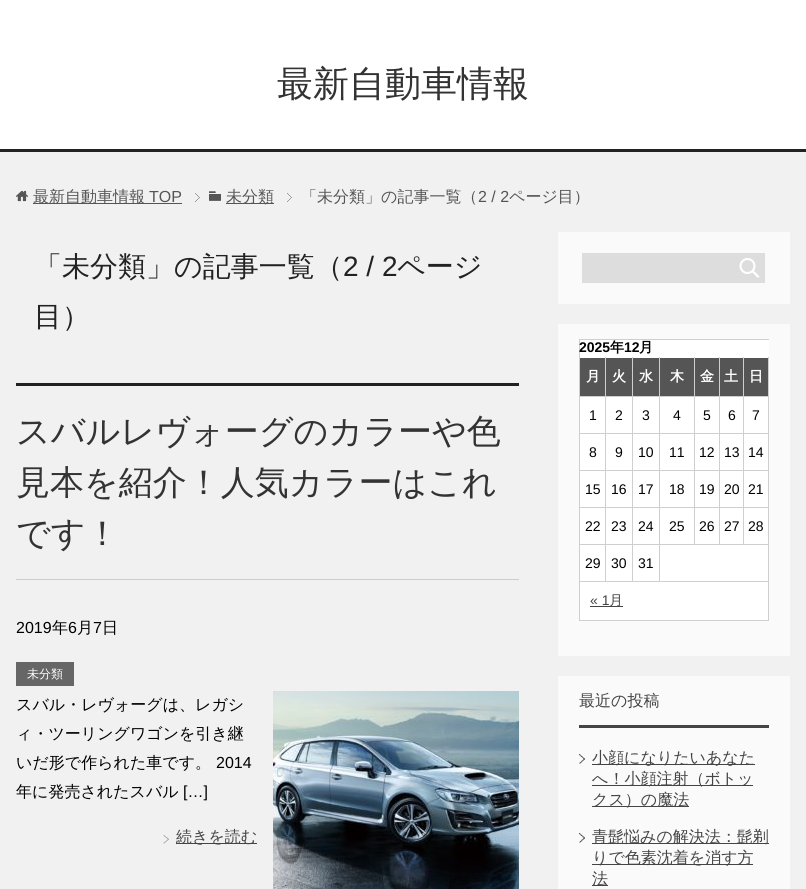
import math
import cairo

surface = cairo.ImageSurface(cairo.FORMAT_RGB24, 806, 889)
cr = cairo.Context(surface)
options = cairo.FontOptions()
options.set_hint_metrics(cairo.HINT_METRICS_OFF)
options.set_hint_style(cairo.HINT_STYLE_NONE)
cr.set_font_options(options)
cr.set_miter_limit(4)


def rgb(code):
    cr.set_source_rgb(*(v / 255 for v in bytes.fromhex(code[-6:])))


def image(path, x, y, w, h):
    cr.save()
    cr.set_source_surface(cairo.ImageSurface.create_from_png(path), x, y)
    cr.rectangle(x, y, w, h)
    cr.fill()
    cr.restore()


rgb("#f1f1f1")
cr.paint()
rgb("#ffffff")
cr.rectangle(0, 0, 806, 149)
cr.fill()
rgb("#222222")
cr.rectangle(0, 149, 806, 3)
cr.fill()
image("img/1.png", 195, 193, 5, 9)
image("img/2.png", 16, 190, 12, 12)
rgb("#555555")
cr.rectangle(33, 203, 149, 1)
cr.fill()
image("img/1.png", 287, 193, 5, 9)
image("img/3.png", 209, 191, 12, 10)
for x, y, w, h, color in [
    (226, 203, 48, 1, "#555555"),
    (16, 383, 503, 3, "#222222"),
    (16, 579, 503, 1, "#cccccc"),
    (16, 662, 58, 24, "#666666"),
]:
    rgb(color)
    cr.rectangle(x, y, w, h)
    cr.fill()
image("img/4.png", 273, 691, 246, 198)
image("img/5.png", 163, 835, 6, 9)
for x, y, w, h, color in [
    (176, 843, 81, 1, "#444444"),
    (558, 232, 232, 72, "#fafafa"),
    (582, 253, 183, 30, "#dddddd"),
]:
    rgb(color)
    cr.rectangle(x, y, w, h)
    cr.fill()
image("img/6.png", 739, 258, 21, 20)
for x, y, w, h, color in [
    (558, 324, 232, 332, "#fafafa"),
    (580, 340, 189, 280, "#ffffff"),
    (579, 339, 190, 1, "#cfcfcf"),
    (579, 339, 1, 282, "#cfcfcf"),
    (580, 358, 25, 38, "#555555"),
    (768, 357, 1, 225, "#cfcfcf"),
    (743, 544, 26, 1, "#cfcfcf"),
    (743, 507, 1, 38, "#cfcfcf"),
    (743, 507, 26, 1, "#cfcfcf"),
    (743, 470, 1, 38, "#cfcfcf"),
    (743, 470, 26, 1, "#cfcfcf"),
    (743, 433, 1, 38, "#cfcfcf"),
    (743, 433, 26, 1, "#cfcfcf"),
    (743, 396, 1, 38, "#cfcfcf"),
    (743, 396, 26, 1, "#cfcfcf"),
    (743, 357, 1, 40, "#cfcfcf"),
    (719, 544, 25, 1, "#cfcfcf"),
    (719, 507, 1, 38, "#cfcfcf"),
    (719, 507, 25, 1, "#cfcfcf"),
    (719, 470, 1, 38, "#cfcfcf"),
    (719, 470, 25, 1, "#cfcfcf"),
    (719, 433, 1, 38, "#cfcfcf"),
    (719, 433, 25, 1, "#cfcfcf"),
    (719, 396, 1, 38, "#cfcfcf"),
    (719, 396, 25, 1, "#cfcfcf"),
    (719, 357, 1, 40, "#cfcfcf"),
    (694, 544, 26, 1, "#cfcfcf"),
    (694, 507, 1, 38, "#cfcfcf"),
    (694, 507, 26, 1, "#cfcfcf"),
    (694, 470, 1, 38, "#cfcfcf"),
    (694, 470, 26, 1, "#cfcfcf"),
    (694, 433, 1, 38, "#cfcfcf"),
    (694, 433, 26, 1, "#cfcfcf"),
    (694, 396, 1, 38, "#cfcfcf"),
    (694, 396, 26, 1, "#cfcfcf"),
    (694, 357, 1, 40, "#cfcfcf"),
    (659, 581, 110, 1, "#cfcfcf"),
    (659, 544, 1, 38, "#cfcfcf"),
    (659, 544, 36, 1, "#cfcfcf"),
    (659, 507, 1, 38, "#cfcfcf"),
    (659, 507, 36, 1, "#cfcfcf"),
    (659, 470, 1, 38, "#cfcfcf"),
    (659, 470, 36, 1, "#cfcfcf"),
    (659, 433, 1, 38, "#cfcfcf"),
    (659, 433, 36, 1, "#cfcfcf"),
    (659, 396, 1, 38, "#cfcfcf"),
    (659, 396, 36, 1, "#cfcfcf"),
    (659, 357, 1, 40, "#cfcfcf"),
    (632, 581, 28, 1, "#cfcfcf"),
    (632, 544, 1, 38, "#cfcfcf"),
    (632, 544, 28, 1, "#cfcfcf"),
    (632, 507, 1, 38, "#cfcfcf"),
    (632, 507, 28, 1, "#cfcfcf"),
    (632, 470, 1, 38, "#cfcfcf"),
    (632, 470, 28, 1, "#cfcfcf"),
    (632, 433, 1, 38, "#cfcfcf"),
    (632, 433, 28, 1, "#cfcfcf"),
    (632, 396, 1, 38, "#cfcfcf"),
    (632, 396, 28, 1, "#cfcfcf"),
    (632, 357, 1, 40, "#cfcfcf"),
    (605, 581, 28, 1, "#cfcfcf"),
    (605, 544, 1, 38, "#cfcfcf"),
    (605, 544, 28, 1, "#cfcfcf"),
    (605, 507, 1, 38, "#cfcfcf"),
    (605, 507, 28, 1, "#cfcfcf"),
    (605, 470, 1, 38, "#cfcfcf"),
    (605, 470, 28, 1, "#cfcfcf"),
    (605, 433, 1, 38, "#cfcfcf"),
    (605, 433, 28, 1, "#cfcfcf"),
    (605, 396, 1, 38, "#cfcfcf"),
    (605, 396, 28, 1, "#cfcfcf"),
    (605, 357, 1, 40, "#cfcfcf"),
    (579, 396, 27, 1, "#cfcfcf"),
    (606, 358, 26, 38, "#555555"),
    (633, 358, 26, 38, "#555555"),
    (660, 358, 34, 38, "#555555"),
    (695, 358, 24, 38, "#555555"),
    (720, 358, 23, 38, "#555555"),
    (744, 358, 24, 38, "#555555"),
    (579, 433, 27, 1, "#cfcfcf"),
    (579, 470, 27, 1, "#cfcfcf"),
    (579, 507, 27, 1, "#cfcfcf"),
    (579, 544, 27, 1, "#cfcfcf"),
    (579, 581, 27, 1, "#cfcfcf"),
    (768, 581, 1, 40, "#cfcfcf"),
    (579, 620, 190, 1, "#cfcfcf"),
    (590, 606, 33, 1, "#444444"),
    (558, 676, 232, 213, "#fafafa"),
    (579, 725, 190, 3, "#444444"),
]:
    rgb(color)
    cr.rectangle(x, y, w, h)
    cr.fill()
image("img/7.png", 579, 754, 6, 10)
for x, y, w, h, color in [
    (592, 764, 163, 1, "#444444"),
    (592, 785, 161, 1, "#444444"),
    (592, 806, 97, 1, "#444444"),
]:
    rgb(color)
    cr.rectangle(x, y, w, h)
    cr.fill()
image("img/7.png", 579, 833, 6, 10)
for x, y, w, h, color in [
    (592, 843, 177, 1, "#444444"),
    (592, 864, 161, 1, "#444444"),
    (592, 885, 16, 1, "#444444"),
]:
    rgb(color)
    cr.rectangle(x, y, w, h)
    cr.fill()
cr.select_font_face("WenQuanYi Zen Hei Medium")
cr.set_font_size(36)
rgb("#333333")
cr.move_to(277, 96)
cr.show_text("最新自動車情報")
cr.set_font_size(16)
rgb("#555555")
cr.move_to(33, 202)
cr.show_text("最新自動車情報")
cr.select_font_face("Liberation Sans")
cr.move_to(149, 202)
cr.show_text("TOP")
cr.select_font_face("WenQuanYi Zen Hei Medium")
cr.move_to(226, 202)
cr.show_text("未分類")
cr.move_to(301, 202)
cr.show_text("「未分類」の記事一覧（")
cr.select_font_face("Liberation Sans")
cr.move_to(478, 202)
cr.show_text("2 / 2")
cr.select_font_face("WenQuanYi Zen Hei Medium")
cr.move_to(509, 202)
cr.show_text("ページ目）")
cr.set_font_size(28)
rgb("#222222")
cr.move_to(34, 276)
cr.show_text("「未分類」の記事一覧（")
cr.select_font_face("Liberation Sans")
cr.move_to(343, 276)
cr.show_text("2 / 2")
cr.select_font_face("WenQuanYi Zen Hei Medium")
cr.move_to(397, 276)
cr.show_text("ページ")
cr.move_to(34, 326)
cr.show_text("目）")
cr.set_font_size(34)
rgb("#333333")
for x, y, s in [
    (16, 443, "スバルレヴォーグのカラーや色"),
    (16, 494, "見本を紹介！人気カラーはこれ"),
    (16, 545, "です！"),
]:
    cr.move_to(x, y)
    cr.show_text(s)
cr.select_font_face("Liberation Sans")
cr.set_font_size(16)
rgb("#000000")
cr.move_to(16, 633)
cr.show_text("2019")
cr.select_font_face("WenQuanYi Zen Hei Medium")
cr.move_to(52, 633)
cr.show_text("年")
cr.select_font_face("Liberation Sans")
cr.move_to(68, 633)
cr.show_text("6")
cr.select_font_face("WenQuanYi Zen Hei Medium")
cr.move_to(77, 633)
cr.show_text("月")
cr.select_font_face("Liberation Sans")
cr.move_to(93, 633)
cr.show_text("7")
cr.select_font_face("WenQuanYi Zen Hei Medium")
cr.move_to(102, 633)
cr.show_text("日")
cr.set_font_size(12)
rgb("#ffffff")
cr.move_to(27, 678)
cr.show_text("未分類")
cr.set_font_size(16)
rgb("#000000")
for x, y, s in [
    (16, 710, "スバル・レヴォーグは、レガシ"),
    (16, 739, "ィ・ツーリングワゴンを引き継"),
    (16, 768, "いだ形で作られた車です。"),
]:
    cr.move_to(x, y)
    cr.show_text(s)
cr.select_font_face("Liberation Sans")
cr.move_to(216, 768)
cr.show_text("2014")
cr.select_font_face("WenQuanYi Zen Hei Medium")
cr.move_to(16, 797)
cr.show_text("年に発売されたスバル")
cr.select_font_face("Liberation Sans")
cr.move_to(183, 797)
cr.show_text("[…]")
cr.select_font_face("WenQuanYi Zen Hei Medium")
rgb("#444444")
cr.move_to(176, 842)
cr.show_text("続きを読む")
cr.select_font_face("Liberation Sans", cairo.FONT_SLANT_NORMAL, cairo.FONT_WEIGHT_BOLD)
cr.set_font_size(14)
rgb("#000000")
cr.move_to(579, 352)
cr.show_text("2025")
cr.select_font_face("WenQuanYi Zen Hei", cairo.FONT_SLANT_NORMAL, cairo.FONT_WEIGHT_BOLD)
cr.move_to(610, 352)
cr.show_text("年")
cr.select_font_face("Liberation Sans", cairo.FONT_SLANT_NORMAL, cairo.FONT_WEIGHT_BOLD)
cr.move_to(624, 352)
cr.show_text("12")
cr.select_font_face("WenQuanYi Zen Hei", cairo.FONT_SLANT_NORMAL, cairo.FONT_WEIGHT_BOLD)
cr.move_to(639, 352)
cr.show_text("月")
rgb("#ffffff")
for x, y, s in [
    (586, 381, "月"),
    (612, 381, "火"),
    (639, 381, "水"),
    (670, 381, "木"),
    (700, 381, "金"),
    (724, 381, "土"),
    (749, 381, "日"),
]:
    cr.move_to(x, y)
    cr.show_text(s)
cr.select_font_face("Liberation Sans")
rgb("#000000")
for x, y, s in [
    (589, 420, "1"),
    (615, 420, "2"),
    (642, 420, "3"),
    (673, 420, "4"),
    (703, 420, "5"),
    (728, 420, "6"),
    (752, 420, "7"),
    (589, 457, "8"),
    (615, 457, "9"),
    (638, 457, "10"),
    (669, 457, "11"),
    (699, 457, "12"),
    (724, 457, "13"),
    (748, 457, "14"),
    (585, 494, "15"),
    (611, 494, "16"),
    (638, 494, "17"),
    (669, 494, "18"),
    (699, 494, "19"),
    (724, 494, "20"),
    (748, 494, "21"),
    (585, 531, "22"),
    (611, 531, "23"),
    (638, 531, "24"),
    (669, 531, "25"),
    (699, 531, "26"),
    (724, 531, "27"),
    (748, 531, "28"),
    (585, 568, "29"),
    (611, 568, "30"),
    (638, 568, "31"),
]:
    cr.move_to(x, y)
    cr.show_text(s)
rgb("#444444")
cr.move_to(590, 605)
cr.show_text("« 1")
cr.select_font_face("WenQuanYi Zen Hei Medium")
cr.move_to(609, 605)
cr.show_text("月")
cr.set_font_size(16)
for x, y, s in [
    (579, 706, "最近の投稿"),
    (592, 763, "小顔になりたいあなた"),
    (592, 784, "へ！小顔注射（ボトッ"),
    (592, 805, "クス）の魔法"),
    (592, 842, "青髭悩みの解決法：髭剃"),
    (592, 863, "りで色素沈着を消す方"),
    (592, 884, "法"),
]:
    cr.move_to(x, y)
    cr.show_text(s)
surface.write_to_png("page.png")
